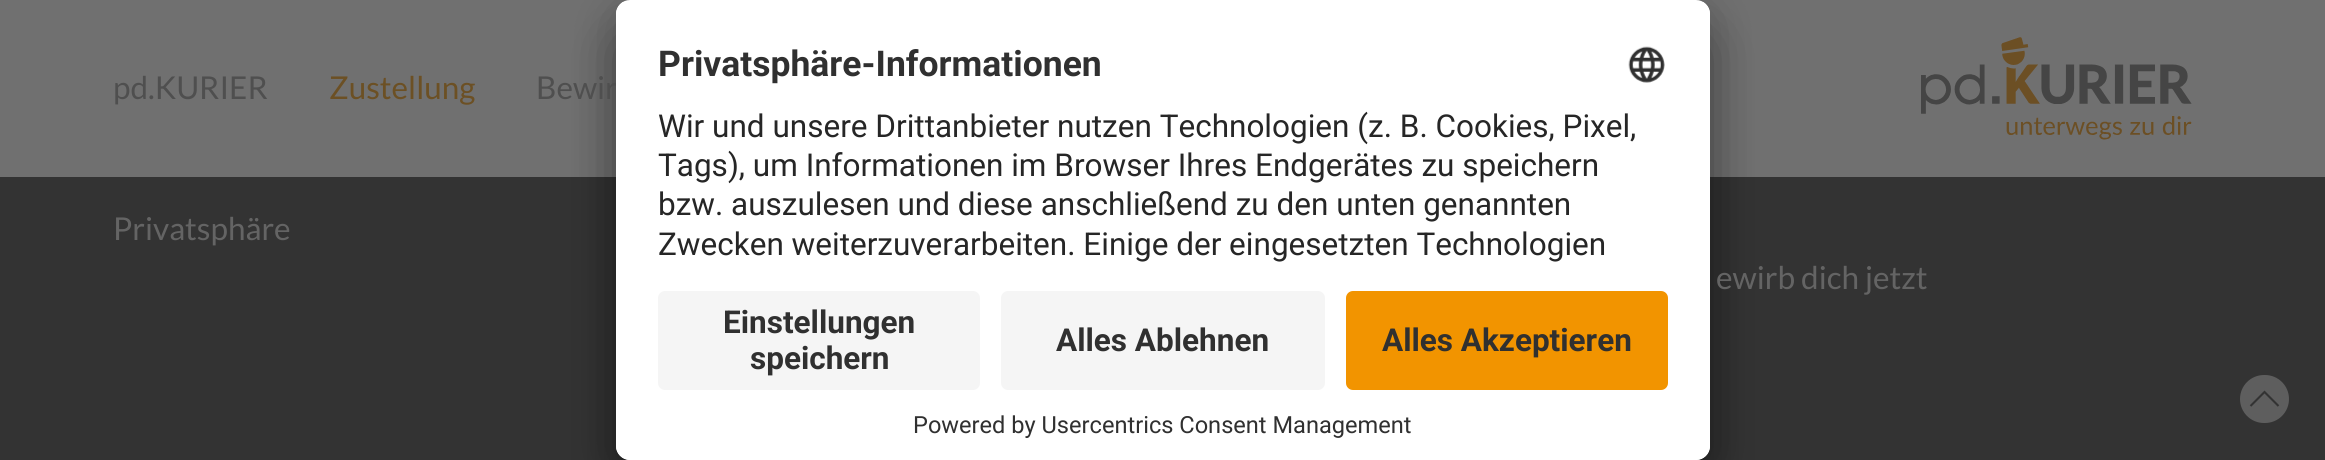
import math
import cairo

surface = cairo.ImageSurface(cairo.FORMAT_RGB24, 2325, 460)
cr = cairo.Context(surface)
options = cairo.FontOptions()
options.set_hint_metrics(cairo.HINT_METRICS_OFF)
options.set_hint_style(cairo.HINT_STYLE_NONE)
cr.set_font_options(options)
cr.set_miter_limit(4)


def rgb(code):
    cr.set_source_rgb(*(v / 255 for v in bytes.fromhex(code[-6:])))


def rrect(x, y, w, h, r):
    cr.new_sub_path()
    for i, (u, v) in enumerate([(x + w - r, y + h - r), (x + r, y + h - r), (x + r, y + r), (x + w - r, y + r)]):
        cr.arc(u, v, r, i * math.pi / 2, (i + 1) * math.pi / 2)
    cr.close_path()


def soft_shadow(x, y, w, h, r, blur, alpha):
    cr.push_group_with_content(cairo.CONTENT_ALPHA)
    cr.set_operator(cairo.OPERATOR_SOURCE)
    for i in range(15, -16, -2):
        e = blur * i / 6
        if min(w, h) + 2 * e > 0:
            cr.set_source_rgba(0, 0, 0, alpha * math.erfc((i - 1) / 8.5) / 2)
            rrect(x - e, y - e, w + 2 * e, h + 2 * e, max(0, min(r + e + blur * .6, min(w, h) / 2 + e)))
            cr.fill()
    cr.mask(cr.pop_group())


def image(path, x, y, w, h):
    cr.save()
    cr.set_source_surface(cairo.ImageSurface.create_from_png(path), x, y)
    cr.rectangle(x, y, w, h)
    cr.fill()
    cr.restore()


rgb("#333333")
cr.paint()
rgb("#707070")
cr.rectangle(0, 0, 2325, 177)
cr.fill()
rgb("#000000")
soft_shadow(616, 35, 1094, 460, 14, 24.5, 0.3)
soft_shadow(616, 9, 1094, 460, 14, 23, 0.22)
image("img/2.png", 1921, 37, 271, 103)
rgb("#5e5e5e")
rrect(2239, 374, 51, 50, 25)
cr.fill_preserve()
rgb("#333333")
cr.stroke()
cr.new_path()
cr.move_to(2250.5, 406)
cr.line_to(2264.5, 392)
cr.line_to(2278.5, 406)
cr.set_line_width(2.1)
cr.stroke()
cr.select_font_face("Lato")
cr.set_font_size(31.5)
rgb("#4f4f4f")
cr.move_to(113, 99)
cr.show_text("pd.KURIER")
rgb("#6c5024")
cr.move_to(329, 99)
cr.show_text("Zustellung")
rgb("#4f4f4f")
cr.move_to(536, 99)
cr.show_text("Bewir")
rgb("#ffffff")
rrect(616, 0, 1094, 460, 14)
cr.fill()
cr.save()
rrect(616, 0, 1094, 460, 14)
cr.clip()
cr.new_path()
cr.move_to(630, 0)
cr.line_to(1696, 0)
cr.curve_to(1703.5, 0, 1710, 6.5, 1710, 14)
cr.line_to(1710, 277)
cr.line_to(616, 277)
cr.line_to(616, 14)
cr.curve_to(616, 6.5, 622.5, 0, 630, 0)
cr.close_path()
cr.clip()
cr.rectangle(616, 2, 1094, 275)
cr.fill()
cr.restore()
image("img/1.png", 1628, 46, 37, 37)
cr.select_font_face("Roboto", cairo.FONT_SLANT_NORMAL, cairo.FONT_WEIGHT_BOLD)
cr.set_font_size(35.5)
rgb("#303030")
cr.move_to(658, 76)
cr.show_text("Privatsphäre-Informationen")
cr.select_font_face("Roboto")
cr.set_font_size(31.5)
rgb("#262626")
for x, y, s in [
    (658, 255, "Zwecken weiterzuverarbeiten. Einige der eingesetzten Technologien"),
    (658, 215, "bzw. auszulesen und diese anschließend zu den unten genannten"),
    (658, 176, "Tags), um Informationen im Browser Ihres Endgerätes zu speichern"),
    (658, 137, "Wir und unsere Drittanbieter nutzen Technologien (z. B. Cookies, Pixel,"),
]:
    cr.move_to(x, y)
    cr.show_text(s)
rgb("#ffffff")
cr.new_path()
cr.move_to(616, 277)
cr.line_to(1710, 277)
cr.line_to(1710, 446)
cr.curve_to(1710, 453.5, 1703.5, 460, 1696, 460)
cr.line_to(630, 460)
cr.curve_to(622.5, 460, 616, 453.5, 616, 446)
cr.close_path()
cr.fill()
cr.set_font_size(23.6)
rgb("#303030")
cr.move_to(913, 433)
cr.show_text("Powered by Usercentrics Consent Management")
rgb("#f29400")
rrect(1346, 291, 322, 99, 7)
cr.fill()
cr.select_font_face("Roboto", cairo.FONT_SLANT_NORMAL, cairo.FONT_WEIGHT_BOLD)
cr.set_font_size(31.5)
rgb("#303030")
cr.move_to(1382, 351)
cr.show_text("Alles Akzeptieren")
rgb("#f5f5f5")
rrect(1001, 291, 324, 99, 7)
cr.fill()
rgb("#303030")
cr.move_to(1056, 351)
cr.show_text("Alles Ablehnen")
rgb("#f5f5f5")
rrect(658, 291, 322, 99, 7)
cr.fill()
rgb("#303030")
cr.move_to(750, 369)
cr.show_text("speichern")
cr.move_to(723, 333)
cr.show_text("Einstellungen")
cr.select_font_face("Lato")
rgb("#646464")
cr.move_to(113, 240)
cr.show_text("Privatsphäre")
cr.move_to(1716, 289)
cr.show_text("ewirb dich jetzt")
surface.write_to_png("page.png")
